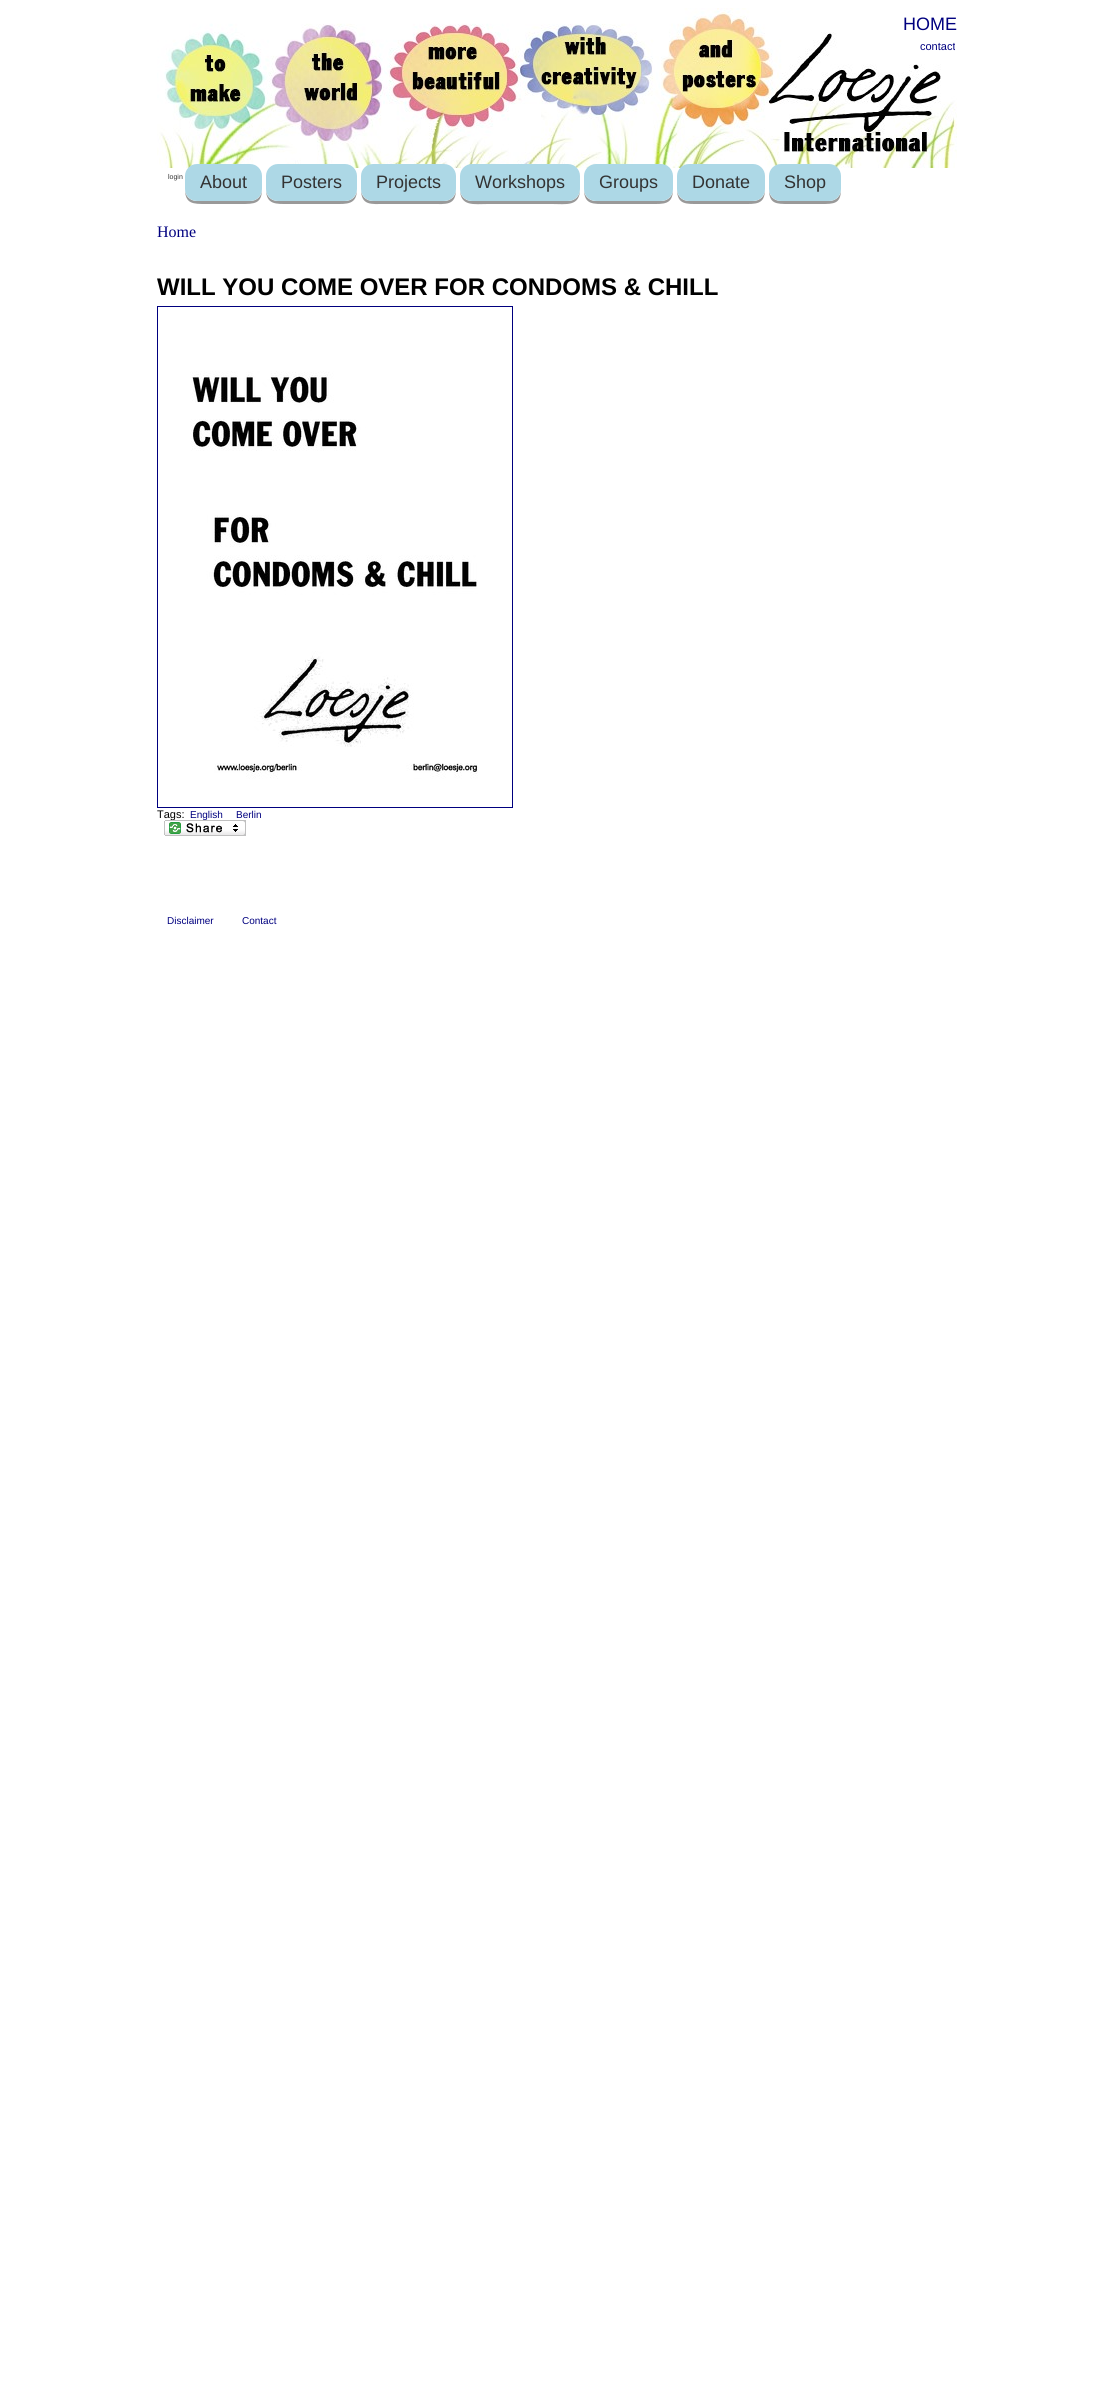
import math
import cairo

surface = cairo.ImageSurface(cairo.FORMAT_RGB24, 1113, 2389)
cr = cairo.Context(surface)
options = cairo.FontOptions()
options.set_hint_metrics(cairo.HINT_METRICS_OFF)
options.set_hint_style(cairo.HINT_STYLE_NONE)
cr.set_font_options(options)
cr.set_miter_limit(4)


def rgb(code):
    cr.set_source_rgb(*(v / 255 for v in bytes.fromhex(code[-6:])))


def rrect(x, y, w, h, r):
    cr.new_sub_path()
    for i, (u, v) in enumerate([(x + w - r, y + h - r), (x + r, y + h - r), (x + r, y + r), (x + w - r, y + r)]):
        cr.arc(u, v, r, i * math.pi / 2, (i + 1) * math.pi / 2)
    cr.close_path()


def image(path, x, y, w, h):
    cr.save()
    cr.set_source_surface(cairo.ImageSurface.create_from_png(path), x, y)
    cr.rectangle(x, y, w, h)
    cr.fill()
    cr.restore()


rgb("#ffffff")
cr.paint()
image("img/1.png", 157, 8, 800, 160)
rgb("#999999")
cr.new_path()
cr.move_to(185, 189)
cr.curve_to(185, 204, 193, 204, 206, 204)
cr.line_to(241, 204)
cr.curve_to(254, 204, 262, 204, 262, 189)
cr.curve_to(262, 196, 257, 201, 250, 201)
cr.line_to(197, 201)
cr.curve_to(190, 201, 185, 196, 185, 189)
cr.close_path()
cr.fill()
rgb("#add8e6")
rrect(185, 164, 77, 37, 12)
cr.fill()
rgb("#999999")
cr.new_path()
cr.move_to(266, 189)
cr.curve_to(266, 205, 276, 204, 289, 204)
cr.line_to(334, 204)
cr.curve_to(347, 204, 357, 205, 357, 189)
cr.curve_to(357, 196, 352, 201, 345, 201)
cr.line_to(278, 201)
cr.curve_to(271, 201, 266, 196, 266, 189)
cr.close_path()
cr.fill()
rgb("#add8e6")
rrect(266, 164, 91, 37, 12)
cr.fill()
rgb("#999999")
cr.new_path()
cr.move_to(361, 189)
cr.curve_to(361, 206, 371, 204, 385, 204)
cr.line_to(432, 204)
cr.curve_to(446, 204, 456, 206, 456, 189)
cr.curve_to(456, 196, 451, 201, 444, 201)
cr.line_to(373, 201)
cr.curve_to(366, 201, 361, 196, 361, 189)
cr.close_path()
cr.fill()
rgb("#add8e6")
rrect(361, 164, 95, 37, 12)
cr.fill()
rgb("#999999")
cr.new_path()
cr.move_to(460, 189)
cr.curve_to(460, 207, 474, 204, 488, 204)
cr.line_to(552, 204)
cr.curve_to(566, 204, 580, 207, 580, 189)
cr.curve_to(580, 196, 575, 201, 568, 201)
cr.line_to(472, 201)
cr.curve_to(465, 201, 460, 196, 460, 189)
cr.close_path()
cr.fill()
rgb("#add8e6")
rrect(460, 164, 120, 37, 12)
cr.fill()
rgb("#999999")
cr.new_path()
cr.move_to(584, 189)
cr.curve_to(584, 205, 593, 204, 607, 204)
cr.line_to(650, 204)
cr.curve_to(664, 204, 673, 205, 673, 189)
cr.curve_to(673, 196, 668, 201, 661, 201)
cr.line_to(596, 201)
cr.curve_to(589, 201, 584, 196, 584, 189)
cr.close_path()
cr.fill()
rgb("#add8e6")
rrect(584, 164, 89, 37, 12)
cr.fill()
rgb("#999999")
cr.new_path()
cr.move_to(677, 189)
cr.curve_to(677, 205, 686, 204, 700, 204)
cr.line_to(742, 204)
cr.curve_to(756, 204, 765, 205, 765, 189)
cr.curve_to(765, 196, 760, 201, 753, 201)
cr.line_to(689, 201)
cr.curve_to(682, 201, 677, 196, 677, 189)
cr.close_path()
cr.fill()
rgb("#add8e6")
rrect(677, 164, 88, 37, 12)
cr.fill()
rgb("#999999")
cr.new_path()
cr.move_to(769, 189)
cr.curve_to(769, 204, 776, 204, 789, 204)
cr.line_to(821, 204)
cr.curve_to(834, 204, 841, 204, 841, 189)
cr.curve_to(841, 196, 836, 201, 829, 201)
cr.line_to(781, 201)
cr.curve_to(774, 201, 769, 196, 769, 189)
cr.close_path()
cr.fill()
rgb("#add8e6")
rrect(769, 164, 72, 37, 12)
cr.fill()
cr.rectangle(157.5, 306.5, 355, 501)
rgb("#00007f")
cr.set_line_width(1)
cr.stroke()
image("img/2.png", 190, 371, 288, 408)
cr.select_font_face("Liberation Sans")
cr.set_font_size(18)
cr.move_to(903, 30)
cr.show_text("HOME")
cr.set_font_size(11)
cr.move_to(920, 50)
cr.show_text("contact")
cr.set_font_size(7)
rgb("#333333")
cr.move_to(168, 179)
cr.show_text("login")
cr.set_font_size(18)
for x, y, s in [
    (200, 188, "About"),
    (281, 188, "Posters"),
    (376, 188, "Projects"),
    (475, 188, "Workshops"),
    (599, 188, "Groups"),
    (692, 188, "Donate"),
    (784, 188, "Shop"),
]:
    cr.move_to(x, y)
    cr.show_text(s)
cr.select_font_face("Liberation Serif")
cr.set_font_size(16)
rgb("#00007f")
cr.move_to(157, 237)
cr.show_text("Home")
cr.select_font_face("Liberation Sans", cairo.FONT_SLANT_NORMAL, cairo.FONT_WEIGHT_BOLD)
cr.set_font_size(24)
rgb("#000000")
cr.move_to(157, 295)
cr.show_text("WILL YOU COME OVER FOR CONDOMS & CHILL")
cr.select_font_face("Liberation Sans")
cr.set_font_size(11)
cr.move_to(157, 818)
cr.show_text("Tags:")
cr.set_font_size(10)
rgb("#00007f")
cr.move_to(190, 818)
cr.show_text("English")
cr.move_to(236, 818)
cr.show_text("Berlin")
image("img/3.png", 164, 820, 82, 16)
cr.move_to(167, 924)
cr.show_text("Disclaimer")
cr.move_to(242, 924)
cr.show_text("Contact")
surface.write_to_png("page.png")
